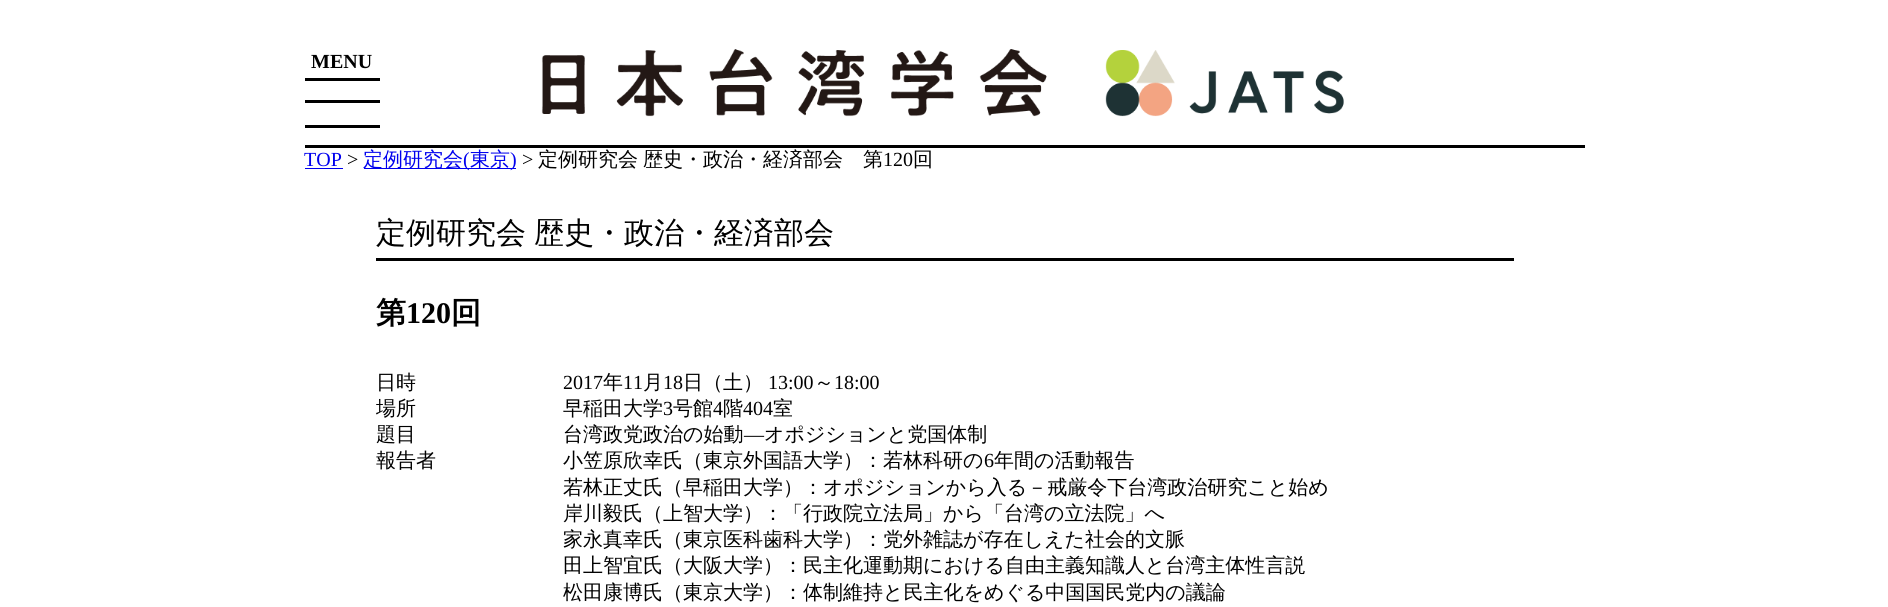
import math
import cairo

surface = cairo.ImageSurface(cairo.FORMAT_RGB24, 1888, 607)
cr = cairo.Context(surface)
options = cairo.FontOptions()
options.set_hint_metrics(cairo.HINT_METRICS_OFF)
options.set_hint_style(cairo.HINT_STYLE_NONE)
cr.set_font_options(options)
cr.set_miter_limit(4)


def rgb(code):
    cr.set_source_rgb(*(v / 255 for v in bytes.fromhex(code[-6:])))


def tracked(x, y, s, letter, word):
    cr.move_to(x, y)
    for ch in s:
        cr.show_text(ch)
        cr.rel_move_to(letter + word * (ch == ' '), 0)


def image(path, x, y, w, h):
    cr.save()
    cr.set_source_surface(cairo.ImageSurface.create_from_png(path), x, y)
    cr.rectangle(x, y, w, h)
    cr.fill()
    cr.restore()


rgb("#ffffff")
cr.paint()
image("img/1.png", 541, 49, 803, 68)
for x, y, w, h, color in [
    (305, 78, 75, 3, "#000000"),
    (305, 100, 75, 3, "#000000"),
    (305, 125, 75, 3, "#000000"),
    (305, 145, 1280, 3, "#000000"),
    (305, 168, 38, 1, "#0000ee"),
    (364, 168, 152, 1, "#0000ee"),
    (376, 258, 1138, 3, "#000000"),
]:
    rgb(color)
    cr.rectangle(x, y, w, h)
    cr.fill()
cr.select_font_face("Liberation Serif", cairo.FONT_SLANT_NORMAL, cairo.FONT_WEIGHT_BOLD)
cr.set_font_size(20)
cr.move_to(311, 68)
cr.show_text("MENU")
cr.select_font_face("Liberation Serif")
rgb("#0000ee")
cr.move_to(304, 166)
cr.show_text("TOP")
rgb("#000000")
cr.move_to(347, 166)
cr.show_text(">")
cr.select_font_face("WenQuanYi Zen Hei Medium")
rgb("#0000ee")
cr.move_to(363, 166)
cr.show_text("定例研究会")
cr.select_font_face("Liberation Serif")
cr.move_to(463, 166)
cr.show_text("(")
cr.select_font_face("WenQuanYi Zen Hei Medium")
cr.move_to(470, 166)
cr.show_text("東京")
cr.select_font_face("Liberation Serif")
cr.move_to(510, 166)
cr.show_text(")")
rgb("#000000")
cr.move_to(522, 166)
cr.show_text(">")
cr.select_font_face("WenQuanYi Zen Hei Medium")
tracked(538, 166, "定例研究会 歴史・政治・経済部会　第", 0, -1)
cr.select_font_face("Liberation Serif")
cr.move_to(883, 166)
cr.show_text("120")
cr.select_font_face("WenQuanYi Zen Hei Medium")
cr.move_to(913, 166)
cr.show_text("回")
cr.set_font_size(30)
tracked(376, 243, "定例研究会 歴史・政治・経済部会", 0, -1)
cr.select_font_face("WenQuanYi Zen Hei", cairo.FONT_SLANT_NORMAL, cairo.FONT_WEIGHT_BOLD)
cr.move_to(376, 323)
cr.show_text("第")
cr.select_font_face("Liberation Serif", cairo.FONT_SLANT_NORMAL, cairo.FONT_WEIGHT_BOLD)
cr.move_to(406, 323)
cr.show_text("120")
cr.select_font_face("WenQuanYi Zen Hei", cairo.FONT_SLANT_NORMAL, cairo.FONT_WEIGHT_BOLD)
cr.move_to(451, 323)
cr.show_text("回")
cr.select_font_face("WenQuanYi Zen Hei Medium")
cr.set_font_size(20)
cr.move_to(376, 389)
cr.show_text("日時")
cr.select_font_face("Liberation Serif")
cr.move_to(563, 389)
cr.show_text("2017")
cr.select_font_face("WenQuanYi Zen Hei Medium")
cr.move_to(603, 389)
cr.show_text("年")
cr.select_font_face("Liberation Serif")
cr.move_to(623, 389)
cr.show_text("11")
cr.select_font_face("WenQuanYi Zen Hei Medium")
cr.move_to(643, 389)
cr.show_text("月")
cr.select_font_face("Liberation Serif")
cr.move_to(663, 389)
cr.show_text("18")
cr.select_font_face("WenQuanYi Zen Hei Medium")
cr.move_to(683, 389)
cr.show_text("日（土）")
cr.select_font_face("Liberation Serif")
cr.move_to(768, 389)
cr.show_text("13:00")
cr.select_font_face("WenQuanYi Zen Hei Medium")
cr.move_to(814, 389)
cr.show_text("～")
cr.select_font_face("Liberation Serif")
cr.move_to(834, 389)
cr.show_text("18:00")
cr.select_font_face("WenQuanYi Zen Hei Medium")
cr.move_to(376, 415)
cr.show_text("場所")
cr.move_to(563, 415)
cr.show_text("早稲田大学")
cr.select_font_face("Liberation Serif")
cr.move_to(663, 415)
cr.show_text("3")
cr.select_font_face("WenQuanYi Zen Hei Medium")
cr.move_to(673, 415)
cr.show_text("号館")
cr.select_font_face("Liberation Serif")
cr.move_to(713, 415)
cr.show_text("4")
cr.select_font_face("WenQuanYi Zen Hei Medium")
cr.move_to(723, 415)
cr.show_text("階")
cr.select_font_face("Liberation Serif")
cr.move_to(743, 415)
cr.show_text("404")
cr.select_font_face("WenQuanYi Zen Hei Medium")
for x, y, s in [
    (773, 415, "室"),
    (376, 441, "題目"),
    (563, 441, "台湾政党政治の始動"),
]:
    cr.move_to(x, y)
    cr.show_text(s)
cr.select_font_face("Liberation Serif")
cr.move_to(744, 441)
cr.show_text("―")
cr.select_font_face("WenQuanYi Zen Hei Medium")
for x, y, s in [
    (764, 441, "オポジションと党国体制"),
    (376, 467, "報告者"),
    (563, 467, "小笠原欣幸氏（東京外国語大学）：若林科研の"),
]:
    cr.move_to(x, y)
    cr.show_text(s)
cr.select_font_face("Liberation Serif")
cr.move_to(984, 467)
cr.show_text("6")
cr.select_font_face("WenQuanYi Zen Hei Medium")
for x, y, s in [
    (994, 467, "年間の活動報告"),
    (563, 494, "若林正丈氏（早稲田大学）：オポジションから入る－戒厳令下台湾政治研究こと始め"),
    (563, 520, "岸川毅氏（上智大学）：「行政院立法局」から「台湾の立法院」へ"),
    (563, 546, "家永真幸氏（東京医科歯科大学）：党外雑誌が存在しえた社会的文脈"),
    (563, 572, "田上智宜氏（大阪大学）：民主化運動期における自由主義知識人と台湾主体性言説"),
    (563, 599, "松田康博氏（東京大学）：体制維持と民主化をめぐる中国国民党内の議論"),
]:
    cr.move_to(x, y)
    cr.show_text(s)
surface.write_to_png("page.png")
